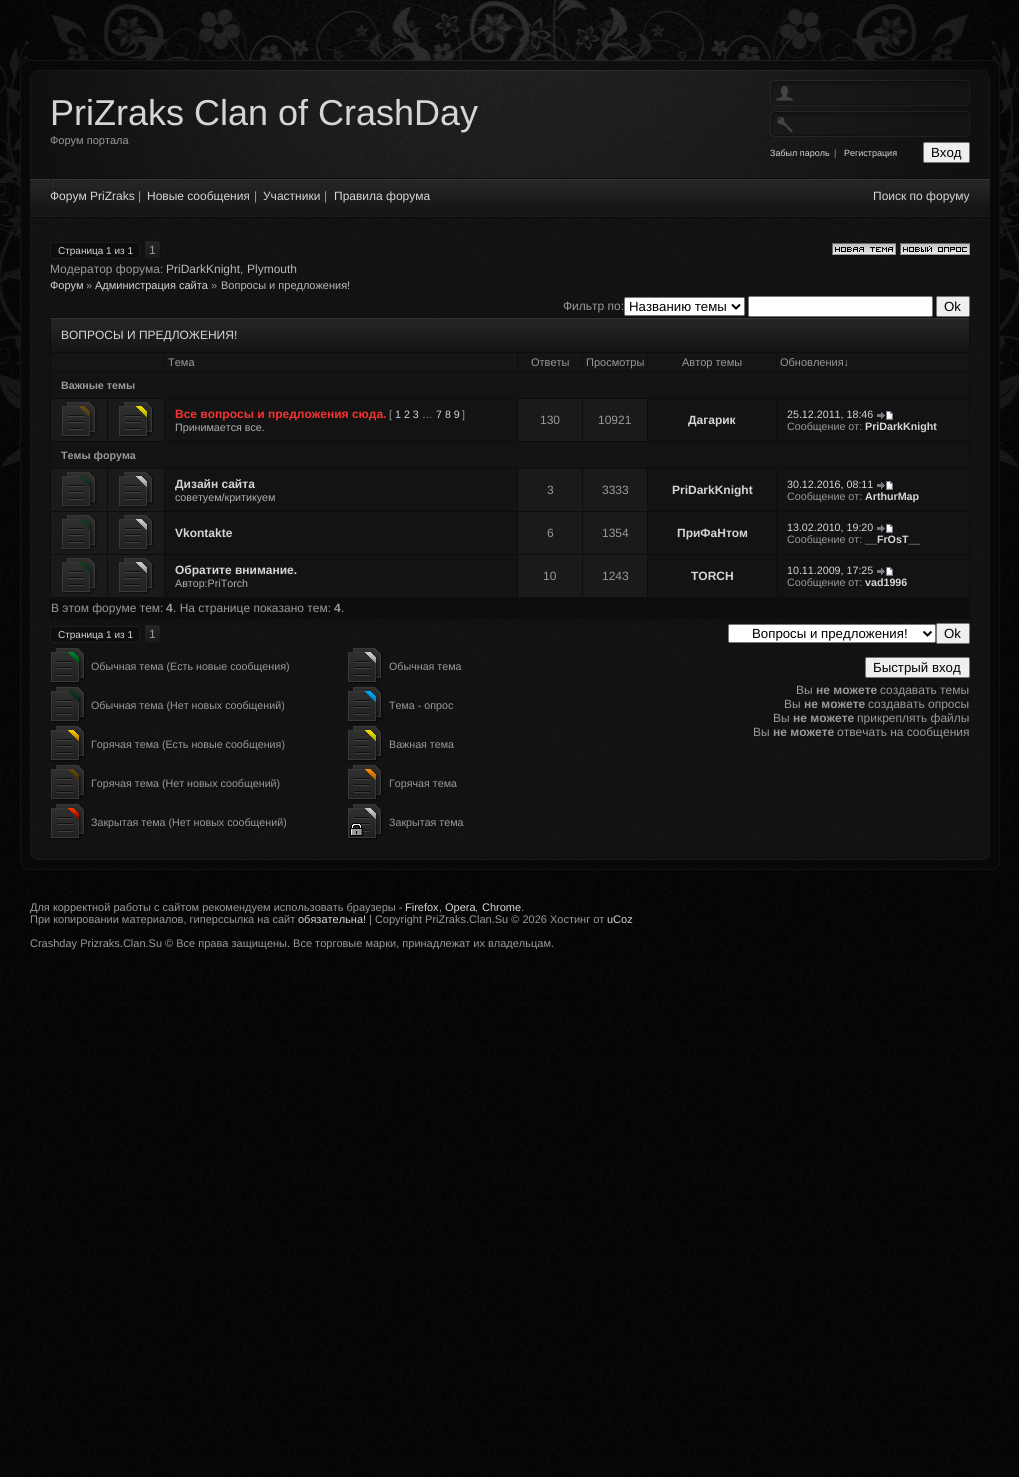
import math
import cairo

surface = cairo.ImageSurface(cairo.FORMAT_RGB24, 1019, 1477)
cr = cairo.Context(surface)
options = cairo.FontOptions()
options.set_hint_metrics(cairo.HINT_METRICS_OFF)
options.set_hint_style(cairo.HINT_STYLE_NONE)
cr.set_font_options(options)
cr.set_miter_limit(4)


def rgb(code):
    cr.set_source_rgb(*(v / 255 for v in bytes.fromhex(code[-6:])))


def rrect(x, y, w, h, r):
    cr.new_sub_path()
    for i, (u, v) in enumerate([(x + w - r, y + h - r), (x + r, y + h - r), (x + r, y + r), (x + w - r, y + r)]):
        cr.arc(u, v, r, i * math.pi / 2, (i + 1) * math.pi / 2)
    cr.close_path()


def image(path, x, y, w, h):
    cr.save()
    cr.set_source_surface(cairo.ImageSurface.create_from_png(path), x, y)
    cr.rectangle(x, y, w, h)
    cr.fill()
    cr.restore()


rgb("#ffffff")
cr.paint()
image("img/1.png", 0, 164, 1019, 1313)
image("img/2.png", 0, 0, 1019, 468)
rgb("#141414")
cr.rectangle(20, 78, 1, 774)
cr.fill()
image("img/3.png", 31, 78, 969, 774)
image("img/4.png", 21, 78, 978, 774)
image("img/5.png", 20, 60, 980, 18)
image("img/6.png", 20, 852, 980, 18)
image("img/7.png", 31, 78, 959, 100)
image("img/8.png", 770, 80, 200, 26)
image("img/9.png", 770, 111, 200, 26)
rgb("#efefef")
rrect(923.5, 142.5, 46, 20, 1.5)
cr.fill_preserve()
rgb("#767676")
cr.set_line_width(1)
cr.stroke()
image("img/10.png", 30, 178, 960, 40)
image("img/11.png", 50, 179, 3, 24)
rgb("#0d0d0d")
rrect(50.5, 242.5, 89, 16, 2.5)
cr.fill_preserve()
rgb("#1d1d1d")
cr.stroke()
rgb("#151515")
rrect(144, 240, 17, 20, 3)
cr.fill()
image("img/12.png", 144, 241, 17, 17)
rrect(144.5, 240.5, 16, 19, 2.5)
rgb("#0f0f0f")
cr.stroke()
image("img/13.png", 832, 243, 64, 12)
image("img/14.png", 900, 243, 70, 12)
rgb("#ffffff")
rrect(624.5, 297.5, 120, 18, 1.5)
cr.fill_preserve()
rgb("#767676")
cr.stroke()
cr.new_path()
cr.move_to(732, 304.5)
cr.line_to(736, 308.5)
cr.line_to(740, 304.5)
rgb("#000000")
cr.set_line_width(2)
cr.stroke()
rgb("#ffffff")
rrect(748.5, 296.5, 184, 20, 1.5)
cr.fill_preserve()
rgb("#767676")
cr.set_line_width(1)
cr.stroke()
rgb("#efefef")
rrect(936.5, 296.5, 33, 20, 1.5)
cr.fill_preserve()
rgb("#767676")
cr.stroke()
rgb("#0d0d0d")
cr.rectangle(50, 317, 920, 302)
cr.fill()
image("img/15.png", 51, 318, 918, 34)
for x, y, w, h, color in [
    (51, 353, 113, 18, "#151515"),
    (165, 353, 352, 18, "#151515"),
    (518, 353, 64, 18, "#151515"),
    (583, 353, 64, 18, "#151515"),
    (648, 353, 128, 18, "#151515"),
    (777, 353, 192, 18, "#151515"),
    (51, 372, 918, 26, "#131313"),
    (51, 399, 56, 42, "#1a1a1a"),
]:
    rgb(color)
    cr.rectangle(x, y, w, h)
    cr.fill()
image("img/16.png", 62, 402, 35, 36)
cr.rectangle(108, 399, 56, 42)
cr.fill()
image("img/17.png", 119, 402, 35, 36)
for x, y, w, h, color in [
    (165, 399, 352, 42, "#131313"),
    (518, 399, 64, 42, "#1a1a1a"),
    (583, 399, 64, 42, "#1a1a1a"),
    (648, 399, 128, 42, "#131313"),
    (777, 399, 192, 42, "#131313"),
]:
    rgb(color)
    cr.rectangle(x, y, w, h)
    cr.fill()
image("img/18.png", 877, 411, 16, 9)
cr.rectangle(51, 442, 918, 26)
cr.fill()
rgb("#1a1a1a")
cr.rectangle(51, 469, 56, 42)
cr.fill()
image("img/19.png", 62, 472, 35, 36)
cr.rectangle(108, 469, 56, 42)
cr.fill()
image("img/20.png", 119, 472, 35, 36)
for x, y, w, h, color in [
    (165, 469, 352, 42, "#131313"),
    (518, 469, 64, 42, "#1a1a1a"),
    (583, 469, 64, 42, "#1a1a1a"),
    (648, 469, 128, 42, "#131313"),
    (777, 469, 192, 42, "#131313"),
]:
    rgb(color)
    cr.rectangle(x, y, w, h)
    cr.fill()
image("img/18.png", 877, 481, 16, 9)
rgb("#1a1a1a")
cr.rectangle(51, 512, 56, 42)
cr.fill()
image("img/19.png", 62, 515, 35, 36)
cr.rectangle(108, 512, 56, 42)
cr.fill()
image("img/20.png", 119, 515, 35, 36)
for x, y, w, h, color in [
    (165, 512, 352, 42, "#131313"),
    (518, 512, 64, 42, "#1a1a1a"),
    (583, 512, 64, 42, "#1a1a1a"),
    (648, 512, 128, 42, "#131313"),
    (777, 512, 192, 42, "#131313"),
]:
    rgb(color)
    cr.rectangle(x, y, w, h)
    cr.fill()
image("img/18.png", 877, 524, 16, 9)
rgb("#1a1a1a")
cr.rectangle(51, 555, 56, 42)
cr.fill()
image("img/19.png", 62, 558, 35, 36)
cr.rectangle(108, 555, 56, 42)
cr.fill()
image("img/20.png", 119, 558, 35, 36)
for x, y, w, h, color in [
    (165, 555, 352, 42, "#131313"),
    (518, 555, 64, 42, "#1a1a1a"),
    (583, 555, 64, 42, "#1a1a1a"),
    (648, 555, 128, 42, "#131313"),
    (777, 555, 192, 42, "#131313"),
]:
    rgb(color)
    cr.rectangle(x, y, w, h)
    cr.fill()
image("img/18.png", 877, 567, 16, 9)
rgb("#0d0d0d")
rrect(50.5, 626.5, 89, 16, 2.5)
cr.fill_preserve()
rgb("#1d1d1d")
cr.stroke()
rgb("#151515")
rrect(144, 624, 17, 20, 3)
cr.fill()
image("img/12.png", 144, 625, 17, 17)
rrect(144.5, 624.5, 16, 19, 2.5)
rgb("#0f0f0f")
cr.stroke()
rgb("#ffffff")
rrect(728.5, 624.5, 207, 18, 1.5)
cr.fill_preserve()
rgb("#767676")
cr.stroke()
cr.new_path()
cr.move_to(923.5, 631.5)
cr.line_to(927.5, 635.5)
cr.line_to(931.5, 631.5)
rgb("#000000")
cr.set_line_width(2)
cr.stroke()
rgb("#efefef")
rrect(936.5, 623.5, 33, 20, 1.5)
cr.fill_preserve()
rgb("#767676")
cr.set_line_width(1)
cr.stroke()
image("img/21.png", 51, 648, 35, 36)
image("img/22.png", 348, 648, 35, 36)
image("img/23.png", 51, 687, 35, 36)
image("img/24.png", 348, 687, 35, 36)
image("img/25.png", 51, 726, 35, 36)
image("img/26.png", 348, 726, 35, 36)
image("img/27.png", 51, 765, 35, 36)
image("img/28.png", 348, 765, 35, 36)
image("img/29.png", 51, 804, 35, 36)
image("img/30.png", 348, 804, 35, 36)
rgb("#efefef")
rrect(865.5, 657.5, 104, 20, 1.5)
cr.fill_preserve()
rgb("#767676")
cr.stroke()
cr.select_font_face("Liberation Sans")
cr.set_font_size(36)
rgb("#d5d5d5")
cr.move_to(50, 125)
cr.show_text("PriZraks Clan of CrashDay")
cr.set_font_size(11)
rgb("#999999")
cr.move_to(50, 144)
cr.show_text("Форум портала")
cr.set_font_size(9)
rgb("#d5d5d5")
cr.move_to(770, 156)
cr.show_text("Забыл пароль")
rgb("#999999")
cr.move_to(834, 156)
cr.show_text("|")
rgb("#d5d5d5")
cr.move_to(844, 156)
cr.show_text("Регистрация")
cr.set_font_size(13.25)
rgb("#000000")
cr.move_to(931, 157)
cr.show_text("Вход")
cr.set_font_size(12)
rgb("#d5d5d5")
cr.move_to(50, 200)
cr.show_text("Форум PriZraks")
rgb("#999999")
cr.move_to(138, 200)
cr.show_text("|")
rgb("#d5d5d5")
cr.move_to(147, 200)
cr.show_text("Новые сообщения")
rgb("#999999")
cr.move_to(254, 200)
cr.show_text("|")
rgb("#d5d5d5")
cr.move_to(263, 200)
cr.show_text("Участники")
rgb("#999999")
cr.move_to(324, 200)
cr.show_text("|")
rgb("#d5d5d5")
cr.move_to(334, 200)
cr.show_text("Правила форума")
cr.move_to(873, 200)
cr.show_text("Поиск по форуму")
cr.set_font_size(10)
cr.move_to(58, 254)
cr.show_text("Страница 1 из 1")
cr.set_font_size(12)
rgb("#999999")
cr.move_to(149, 254)
cr.show_text("1")
cr.move_to(50, 273)
cr.show_text("Модератор форума:")
rgb("#b8b8b8")
cr.move_to(166, 273)
cr.show_text("PriDarkKnight")
rgb("#999999")
cr.move_to(240, 273)
cr.show_text(",")
rgb("#b8b8b8")
cr.move_to(247, 273)
cr.show_text("Plymouth")
cr.set_font_size(11)
rgb("#d5d5d5")
cr.move_to(50, 289)
cr.show_text("Форум")
rgb("#999999")
cr.move_to(86, 289)
cr.show_text("»")
rgb("#d5d5d5")
cr.move_to(95, 289)
cr.show_text("Администрация сайта")
rgb("#999999")
cr.move_to(211, 289)
cr.show_text("»")
rgb("#b8b8b8")
cr.move_to(221, 289)
cr.show_text("Вопросы и предложения!")
cr.set_font_size(12)
rgb("#999999")
cr.move_to(563, 310)
cr.show_text("Фильтр по:")
cr.set_font_size(13.25)
rgb("#000000")
cr.move_to(629, 311)
cr.show_text("Названию темы")
cr.move_to(944, 311)
cr.show_text("Ok")
cr.set_font_size(12)
rgb("#d5d5d5")
cr.move_to(61, 339)
cr.show_text("ВОПРОСЫ И ПРЕДЛОЖЕНИЯ!")
cr.set_font_size(11)
rgb("#999999")
for x, y, s in [
    (168, 366, "Тема"),
    (531, 366, "Ответы"),
    (586, 366, "Просмотры"),
    (682, 366, "Автор темы"),
    (780, 366, "Обновления↓"),
]:
    cr.move_to(x, y)
    cr.show_text(s)
cr.select_font_face("Liberation Sans", cairo.FONT_SLANT_NORMAL, cairo.FONT_WEIGHT_BOLD)
cr.set_font_size(10.7)
cr.move_to(61, 389)
cr.show_text("Важные темы")
cr.set_font_size(12)
rgb("#f63333")
cr.move_to(175, 418)
cr.show_text("Все вопросы и предложения сюда.")
cr.select_font_face("Liberation Sans")
cr.set_font_size(10.7)
rgb("#999999")
cr.move_to(389, 418)
cr.show_text("[")
rgb("#d5d5d5")
cr.move_to(395, 418)
cr.show_text("1 2 3")
rgb("#999999")
cr.move_to(422, 418)
cr.show_text("…")
rgb("#d5d5d5")
cr.move_to(436, 418)
cr.show_text("7 8 9")
rgb("#999999")
cr.move_to(462, 418)
cr.show_text("]")
rgb("#aeaeae")
cr.move_to(175, 431)
cr.show_text("Принимается все.")
cr.set_font_size(12)
rgb("#999999")
cr.move_to(540, 424)
cr.show_text("130")
cr.move_to(598, 424)
cr.show_text("10921")
cr.select_font_face("Liberation Sans", cairo.FONT_SLANT_NORMAL, cairo.FONT_WEIGHT_BOLD)
rgb("#d5d5d5")
cr.move_to(688, 424)
cr.show_text("Дагарик")
cr.select_font_face("Liberation Sans")
cr.set_font_size(10.7)
cr.move_to(787, 418)
cr.show_text("25.12.2011, 18:46")
rgb("#999999")
cr.move_to(787, 430)
cr.show_text("Сообщение от:")
cr.select_font_face("Liberation Sans", cairo.FONT_SLANT_NORMAL, cairo.FONT_WEIGHT_BOLD)
rgb("#d5d5d5")
cr.move_to(865, 430)
cr.show_text("PriDarkKnight")
rgb("#999999")
cr.move_to(61, 459)
cr.show_text("Темы форума")
cr.set_font_size(12)
rgb("#d5d5d5")
cr.move_to(175, 488)
cr.show_text("Дизайн сайта")
cr.select_font_face("Liberation Sans")
cr.set_font_size(10.7)
rgb("#aeaeae")
cr.move_to(175, 501)
cr.show_text("советуем/критикуем")
cr.set_font_size(12)
rgb("#999999")
cr.move_to(547, 494)
cr.show_text("3")
cr.move_to(602, 494)
cr.show_text("3333")
cr.select_font_face("Liberation Sans", cairo.FONT_SLANT_NORMAL, cairo.FONT_WEIGHT_BOLD)
rgb("#d5d5d5")
cr.move_to(672, 494)
cr.show_text("PriDarkKnight")
cr.select_font_face("Liberation Sans")
cr.set_font_size(10.7)
cr.move_to(787, 488)
cr.show_text("30.12.2016, 08:11")
rgb("#999999")
cr.move_to(787, 500)
cr.show_text("Сообщение от:")
cr.select_font_face("Liberation Sans", cairo.FONT_SLANT_NORMAL, cairo.FONT_WEIGHT_BOLD)
rgb("#d5d5d5")
cr.move_to(865, 500)
cr.show_text("ArthurMap")
cr.set_font_size(12)
cr.move_to(175, 537)
cr.show_text("Vkontakte")
cr.select_font_face("Liberation Sans")
rgb("#999999")
cr.move_to(547, 537)
cr.show_text("6")
cr.move_to(602, 537)
cr.show_text("1354")
cr.select_font_face("Liberation Sans", cairo.FONT_SLANT_NORMAL, cairo.FONT_WEIGHT_BOLD)
rgb("#d5d5d5")
cr.move_to(677, 537)
cr.show_text("ПриФаНтом")
cr.select_font_face("Liberation Sans")
cr.set_font_size(10.7)
cr.move_to(787, 531)
cr.show_text("13.02.2010, 19:20")
rgb("#999999")
cr.move_to(787, 543)
cr.show_text("Сообщение от:")
cr.select_font_face("Liberation Sans", cairo.FONT_SLANT_NORMAL, cairo.FONT_WEIGHT_BOLD)
rgb("#d5d5d5")
cr.move_to(865, 543)
cr.show_text("__FrOsT__")
cr.set_font_size(12)
cr.move_to(175, 574)
cr.show_text("Обратите внимание.")
cr.select_font_face("Liberation Sans")
cr.set_font_size(10.7)
rgb("#aeaeae")
cr.move_to(175, 587)
cr.show_text("Автор:PriTorch")
cr.set_font_size(12)
rgb("#999999")
cr.move_to(543, 580)
cr.show_text("10")
cr.move_to(602, 580)
cr.show_text("1243")
cr.select_font_face("Liberation Sans", cairo.FONT_SLANT_NORMAL, cairo.FONT_WEIGHT_BOLD)
rgb("#d5d5d5")
cr.move_to(691, 580)
cr.show_text("TORCH")
cr.select_font_face("Liberation Sans")
cr.set_font_size(10.7)
cr.move_to(787, 574)
cr.show_text("10.11.2009, 17:25")
rgb("#999999")
cr.move_to(787, 586)
cr.show_text("Сообщение от:")
cr.select_font_face("Liberation Sans", cairo.FONT_SLANT_NORMAL, cairo.FONT_WEIGHT_BOLD)
rgb("#d5d5d5")
cr.move_to(865, 586)
cr.show_text("vad1996")
cr.select_font_face("Liberation Sans")
cr.set_font_size(12)
rgb("#999999")
cr.move_to(51, 612)
cr.show_text("В этом форуме тем:")
cr.select_font_face("Liberation Sans", cairo.FONT_SLANT_NORMAL, cairo.FONT_WEIGHT_BOLD)
cr.move_to(166, 612)
cr.show_text("4")
cr.select_font_face("Liberation Sans")
cr.move_to(173, 612)
cr.show_text(". На странице показано тем:")
cr.select_font_face("Liberation Sans", cairo.FONT_SLANT_NORMAL, cairo.FONT_WEIGHT_BOLD)
cr.move_to(334, 612)
cr.show_text("4")
cr.select_font_face("Liberation Sans")
cr.move_to(341, 612)
cr.show_text(".")
cr.set_font_size(10)
rgb("#d5d5d5")
cr.move_to(58, 638)
cr.show_text("Страница 1 из 1")
cr.set_font_size(12)
rgb("#999999")
cr.move_to(149, 638)
cr.show_text("1")
cr.set_font_size(13.25)
rgb("#000000")
cr.move_to(752, 638)
cr.show_text("Вопросы и предложения!")
cr.move_to(944, 638)
cr.show_text("Ok")
cr.set_font_size(10.7)
rgb("#999999")
for x, y, s in [
    (91, 670, "Обычная тема (Есть новые сообщения)"),
    (389, 670, "Обычная тема"),
    (91, 709, "Обычная тема (Нет новых сообщений)"),
    (389, 709, "Тема - опрос"),
    (91, 748, "Горячая тема (Есть новые сообщения)"),
    (389, 748, "Важная тема"),
    (91, 787, "Горячая тема (Нет новых сообщений)"),
    (389, 787, "Горячая тема"),
    (91, 826, "Закрытая тема (Нет новых сообщений)"),
    (389, 826, "Закрытая тема"),
]:
    cr.move_to(x, y)
    cr.show_text(s)
cr.set_font_size(13.25)
rgb("#000000")
cr.move_to(873, 672)
cr.show_text("Быстрый вход")
cr.set_font_size(12)
rgb("#999999")
cr.move_to(796, 694)
cr.show_text("Вы")
cr.select_font_face("Liberation Sans", cairo.FONT_SLANT_NORMAL, cairo.FONT_WEIGHT_BOLD)
cr.move_to(816, 694)
cr.show_text("не можете")
cr.select_font_face("Liberation Sans")
cr.move_to(880, 694)
cr.show_text("создавать темы")
cr.move_to(784, 708)
cr.show_text("Вы")
cr.select_font_face("Liberation Sans", cairo.FONT_SLANT_NORMAL, cairo.FONT_WEIGHT_BOLD)
cr.move_to(804, 708)
cr.show_text("не можете")
cr.select_font_face("Liberation Sans")
cr.move_to(868, 708)
cr.show_text("создавать опросы")
cr.move_to(773, 722)
cr.show_text("Вы")
cr.select_font_face("Liberation Sans", cairo.FONT_SLANT_NORMAL, cairo.FONT_WEIGHT_BOLD)
cr.move_to(793, 722)
cr.show_text("не можете")
cr.select_font_face("Liberation Sans")
cr.move_to(857, 722)
cr.show_text("прикреплять файлы")
cr.move_to(753, 736)
cr.show_text("Вы")
cr.select_font_face("Liberation Sans", cairo.FONT_SLANT_NORMAL, cairo.FONT_WEIGHT_BOLD)
cr.move_to(773, 736)
cr.show_text("не можете")
cr.select_font_face("Liberation Sans")
cr.move_to(837, 736)
cr.show_text("отвечать на сообщения")
cr.set_font_size(11)
cr.move_to(30, 911)
cr.show_text("Для корректной работы с сайтом рекомендуем использовать браузеры -")
rgb("#d5d5d5")
cr.move_to(405, 911)
cr.show_text("Firefox")
rgb("#999999")
cr.move_to(439, 911)
cr.show_text(",")
rgb("#d5d5d5")
cr.move_to(445, 911)
cr.show_text("Opera")
rgb("#999999")
cr.move_to(475, 911)
cr.show_text(",")
rgb("#d5d5d5")
cr.move_to(482, 911)
cr.show_text("Chrome")
rgb("#999999")
cr.move_to(521, 911)
cr.show_text(".")
cr.move_to(30, 923)
cr.show_text("При копировании материалов, гиперссылка на сайт")
rgb("#d5d5d5")
cr.move_to(298, 923)
cr.show_text("обязательна!")
rgb("#999999")
cr.move_to(369, 923)
cr.show_text("| Copyright PriZraks.Clan.Su © 2026 Хостинг от")
rgb("#d5d5d5")
cr.move_to(607, 923)
cr.show_text("uCoz")
rgb("#999999")
cr.move_to(30, 947)
cr.show_text("Crashday Prizraks.Clan.Su © Все права защищены. Все торговые марки, принадлежат их владельцам.")
surface.write_to_png("page.png")
